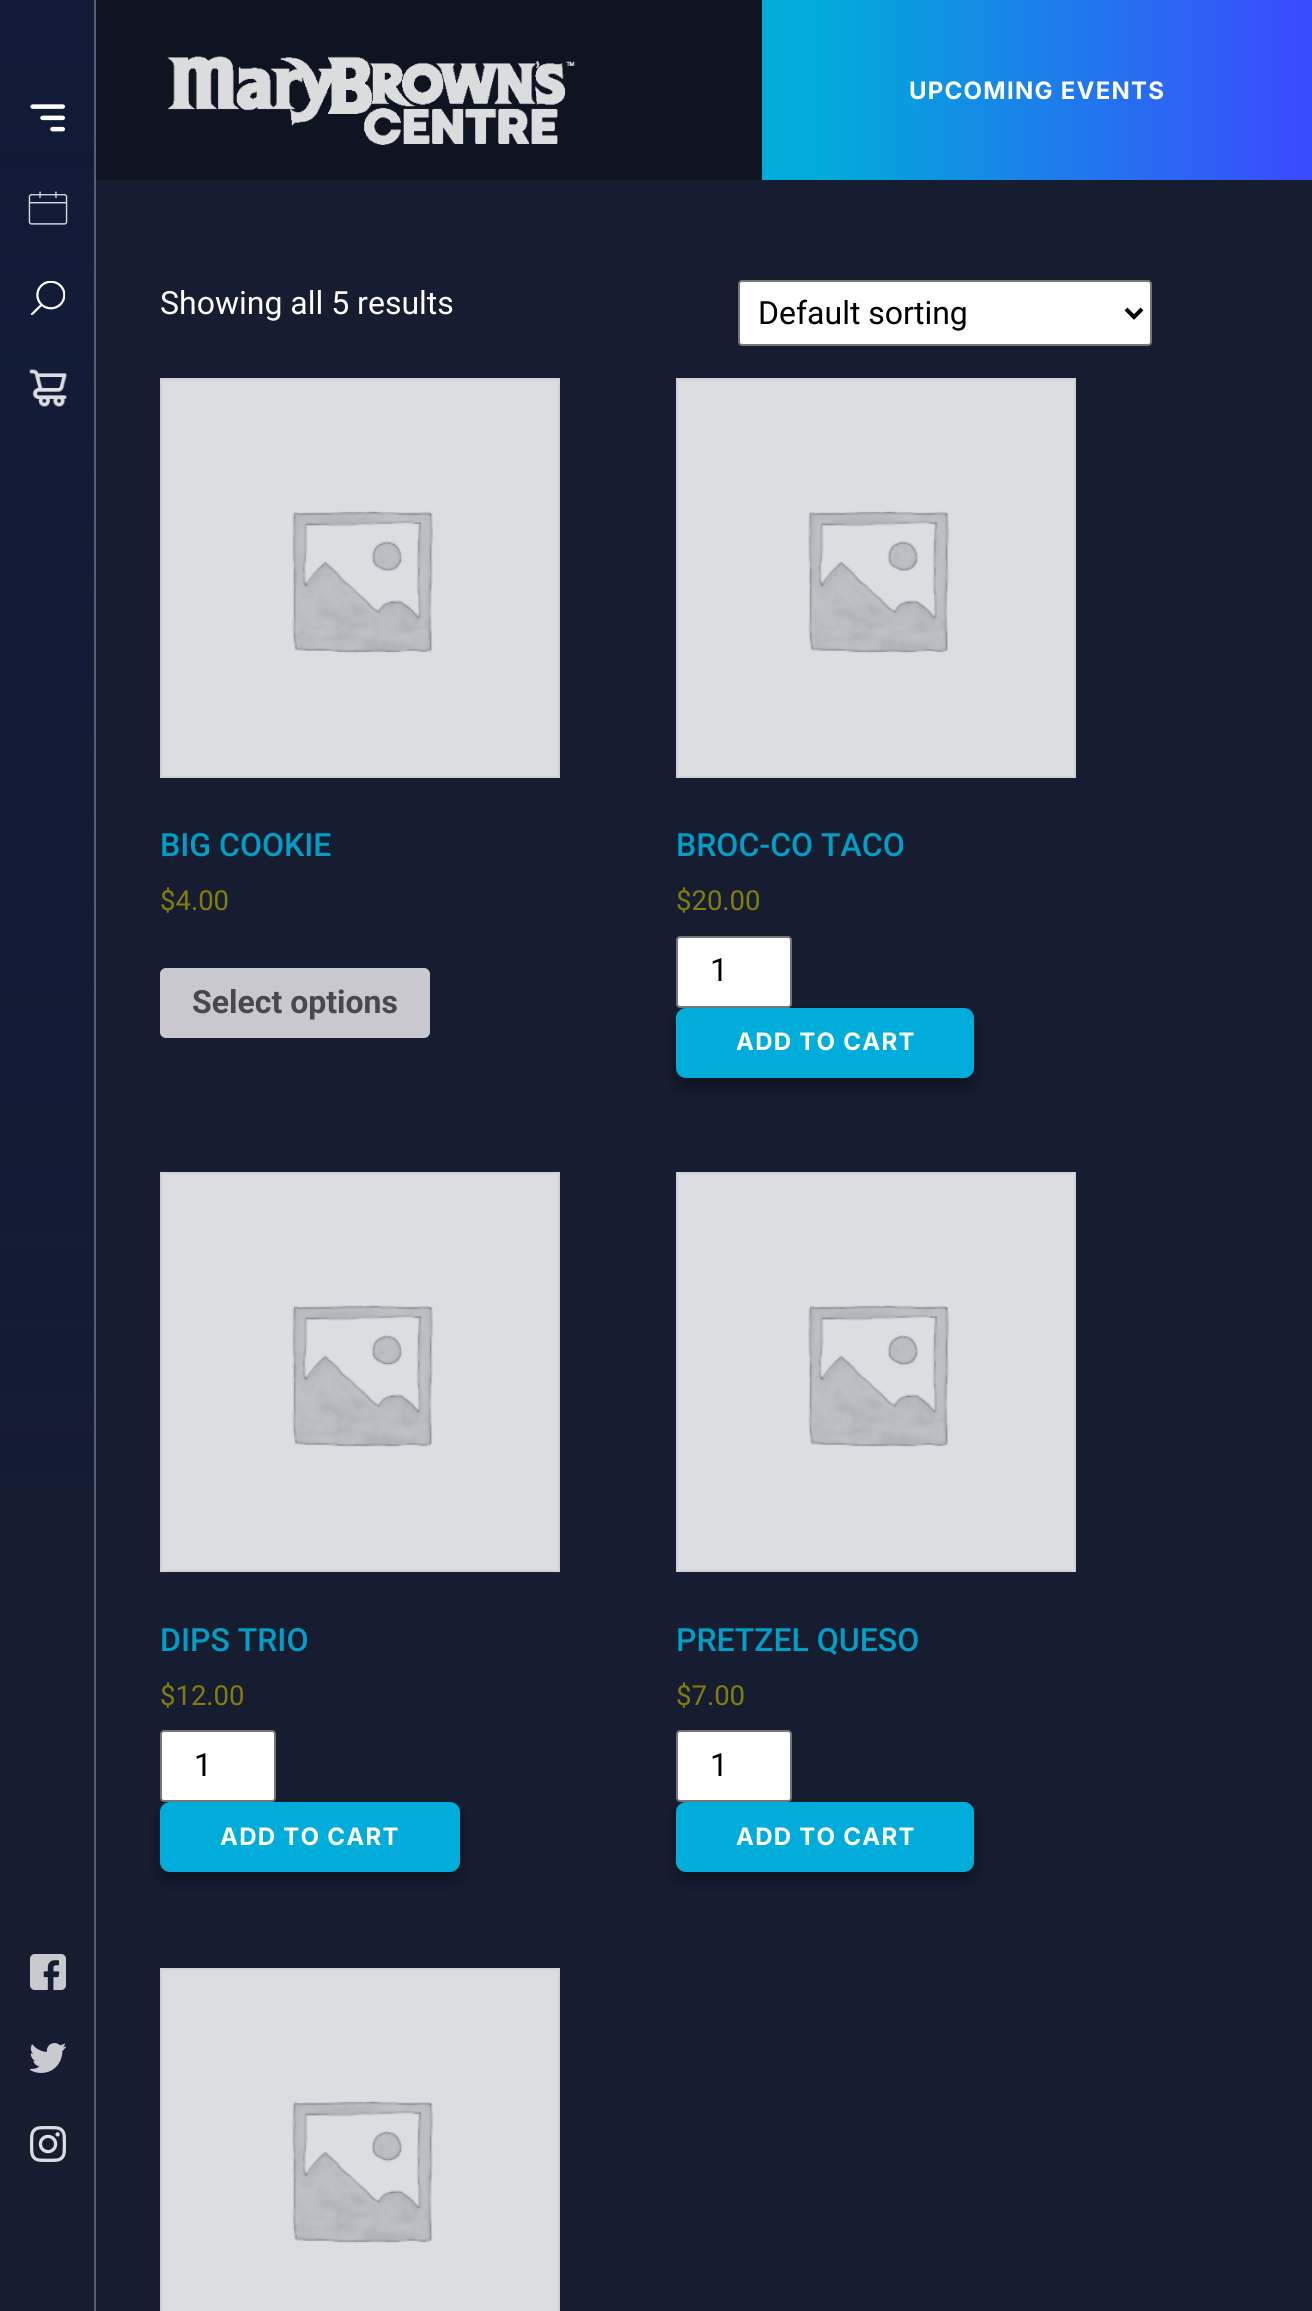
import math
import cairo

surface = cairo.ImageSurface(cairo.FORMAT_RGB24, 1312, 2311)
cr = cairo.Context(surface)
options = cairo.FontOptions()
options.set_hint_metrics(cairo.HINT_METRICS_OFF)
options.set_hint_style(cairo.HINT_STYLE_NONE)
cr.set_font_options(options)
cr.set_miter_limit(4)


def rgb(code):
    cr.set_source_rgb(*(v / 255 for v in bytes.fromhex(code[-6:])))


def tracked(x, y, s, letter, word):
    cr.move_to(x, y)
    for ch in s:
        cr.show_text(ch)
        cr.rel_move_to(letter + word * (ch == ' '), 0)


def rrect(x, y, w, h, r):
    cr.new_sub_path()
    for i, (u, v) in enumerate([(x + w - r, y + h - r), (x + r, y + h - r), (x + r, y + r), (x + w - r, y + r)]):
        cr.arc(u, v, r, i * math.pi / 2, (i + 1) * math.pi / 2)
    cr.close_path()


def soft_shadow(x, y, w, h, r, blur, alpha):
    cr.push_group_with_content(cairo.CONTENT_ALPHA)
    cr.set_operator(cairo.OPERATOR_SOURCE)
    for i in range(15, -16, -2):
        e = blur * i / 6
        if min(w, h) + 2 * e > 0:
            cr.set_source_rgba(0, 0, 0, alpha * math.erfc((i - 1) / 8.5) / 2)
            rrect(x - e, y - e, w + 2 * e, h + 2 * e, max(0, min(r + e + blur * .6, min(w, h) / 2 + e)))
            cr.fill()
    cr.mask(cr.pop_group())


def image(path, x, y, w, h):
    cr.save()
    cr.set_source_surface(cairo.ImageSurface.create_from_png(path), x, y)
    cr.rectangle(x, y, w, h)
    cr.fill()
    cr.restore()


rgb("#161d31")
cr.paint()
rgb("#0f1422")
cr.rectangle(0, 0, 762, 180)
cr.fill()
gradient = cairo.LinearGradient(47, 0, 47, 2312)
gradient.add_color_stop_rgba(0, 0.067, 0.106, 0.216, 1)
gradient.add_color_stop_rgba(1, 0.067, 0.106, 0.216, 0)
cr.set_source(gradient)
cr.rectangle(0, 0, 96, 1492)
cr.fill()
cr.set_source_rgba(1, 1, 1, 0.3)
cr.rectangle(94, 0, 2, 2311)
cr.fill()
image("img/1.png", 30, 104, 36, 28)
image("img/2.png", 28, 191, 40, 34)
image("img/3.png", 31, 281, 34, 34)
image("img/4.png", 29, 369, 38, 38)
image("img/5.png", 30, 1954, 36, 36)
image("img/6.png", 30, 2043, 36, 30)
image("img/7.png", 30, 2126, 36, 36)
image("img/8.png", 167, 56, 408, 89)
gradient = cairo.LinearGradient(762, 90, 1312, 90)
gradient.add_color_stop_rgba(0.1, 0, 0.675, 0.851, 1)
gradient.add_color_stop_rgba(0.97, 0.227, 0.302, 0.988, 1)
cr.set_source(gradient)
cr.rectangle(762, 0, 550, 180)
cr.fill()
rgb("#ffffff")
rrect(739, 281, 412, 64, 3)
cr.fill_preserve()
rgb("#767676")
cr.stroke()
cr.new_path()
cr.move_to(1126, 309)
cr.line_to(1134, 317)
cr.line_to(1142, 309)
rgb("#000000")
cr.set_line_width(4)
cr.stroke()
cr.rectangle(161, 379, 398, 398)
rgb("#d1d2d5")
cr.set_line_width(2)
cr.stroke()
image("img/9.png", 162, 380, 396, 396)
rgb("#c9c8d1")
rrect(160, 968, 270, 70, 6)
cr.fill()
cr.rectangle(677, 379, 398, 398)
rgb("#d1d2d5")
cr.stroke()
image("img/10.png", 678, 380, 396, 396)
rgb("#000000")
soft_shadow(676, 1016, 298, 70, 10, 8, 0.4)
rgb("#ffffff")
rrect(677, 937, 114, 70, 3)
cr.fill_preserve()
rgb("#767676")
cr.stroke()
rgb("#00acd9")
rrect(676, 1008, 298, 70, 10)
cr.fill()
cr.rectangle(161, 1173, 398, 398)
rgb("#d1d2d5")
cr.stroke()
image("img/9.png", 162, 1174, 396, 396)
rgb("#000000")
soft_shadow(160, 1810, 300, 70, 10, 8, 0.4)
rgb("#ffffff")
rrect(161, 1731, 114, 70, 3)
cr.fill_preserve()
rgb("#767676")
cr.stroke()
rgb("#00acd9")
rrect(160, 1802, 300, 70, 10)
cr.fill()
cr.rectangle(677, 1173, 398, 398)
rgb("#d1d2d5")
cr.stroke()
image("img/10.png", 678, 1174, 396, 396)
rgb("#000000")
soft_shadow(676, 1810, 298, 70, 10, 8, 0.4)
rgb("#ffffff")
rrect(677, 1731, 114, 70, 3)
cr.fill_preserve()
rgb("#767676")
cr.stroke()
rgb("#00acd9")
rrect(676, 1802, 298, 70, 10)
cr.fill()
cr.rectangle(161, 1969, 398, 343)
rgb("#d1d2d5")
cr.stroke()
image("img/11.png", 162, 1970, 396, 341)
cr.select_font_face("Inter", cairo.FONT_SLANT_NORMAL, cairo.FONT_WEIGHT_BOLD)
cr.set_font_size(24)
rgb("#ffffff")
tracked(909, 99, "UPCOMING EVENTS", 1.25, 0)
cr.select_font_face("Roboto")
cr.set_font_size(32)
cr.move_to(160, 314)
cr.show_text("Showing all 5 results")
rgb("#000000")
cr.move_to(758, 324)
cr.show_text("Default sorting")
cr.select_font_face("Roboto Medium")
rgb("#039ec5")
cr.move_to(160, 856)
cr.show_text("BIG COOKIE")
cr.select_font_face("Roboto")
cr.set_font_size(27.5)
rgb("#827d0f")
cr.move_to(160, 910)
cr.show_text("$4.00")
cr.select_font_face("Roboto", cairo.FONT_SLANT_NORMAL, cairo.FONT_WEIGHT_BOLD)
cr.set_font_size(32)
rgb("#48494c")
cr.move_to(192, 1013)
cr.show_text("Select options")
cr.select_font_face("Roboto Medium")
rgb("#039ec5")
cr.move_to(676, 856)
cr.show_text("BROC-CO TACO")
cr.select_font_face("Roboto")
cr.set_font_size(27.5)
rgb("#827d0f")
cr.move_to(676, 910)
cr.show_text("$20.00")
cr.set_font_size(32)
rgb("#000000")
cr.move_to(710, 981)
cr.show_text("1")
cr.select_font_face("Inter", cairo.FONT_SLANT_NORMAL, cairo.FONT_WEIGHT_BOLD)
cr.set_font_size(24)
rgb("#ffffff")
tracked(736, 1050, "ADD TO CART", 1.25, 0)
cr.select_font_face("Roboto Medium")
cr.set_font_size(32)
rgb("#039ec5")
cr.move_to(160, 1651)
cr.show_text("DIPS TRIO")
cr.select_font_face("Roboto")
cr.set_font_size(27.5)
rgb("#827d0f")
cr.move_to(160, 1705)
cr.show_text("$12.00")
cr.set_font_size(32)
rgb("#000000")
cr.move_to(194, 1776)
cr.show_text("1")
cr.select_font_face("Inter", cairo.FONT_SLANT_NORMAL, cairo.FONT_WEIGHT_BOLD)
cr.set_font_size(24)
rgb("#ffffff")
tracked(220, 1845, "ADD TO CART", 1.25, 0)
cr.select_font_face("Roboto Medium")
cr.set_font_size(32)
rgb("#039ec5")
cr.move_to(676, 1651)
cr.show_text("PRETZEL QUESO")
cr.select_font_face("Roboto")
cr.set_font_size(27.5)
rgb("#827d0f")
cr.move_to(676, 1705)
cr.show_text("$7.00")
cr.set_font_size(32)
rgb("#000000")
cr.move_to(710, 1776)
cr.show_text("1")
cr.select_font_face("Inter", cairo.FONT_SLANT_NORMAL, cairo.FONT_WEIGHT_BOLD)
cr.set_font_size(24)
rgb("#ffffff")
tracked(736, 1845, "ADD TO CART", 1.25, 0)
surface.write_to_png("page.png")
